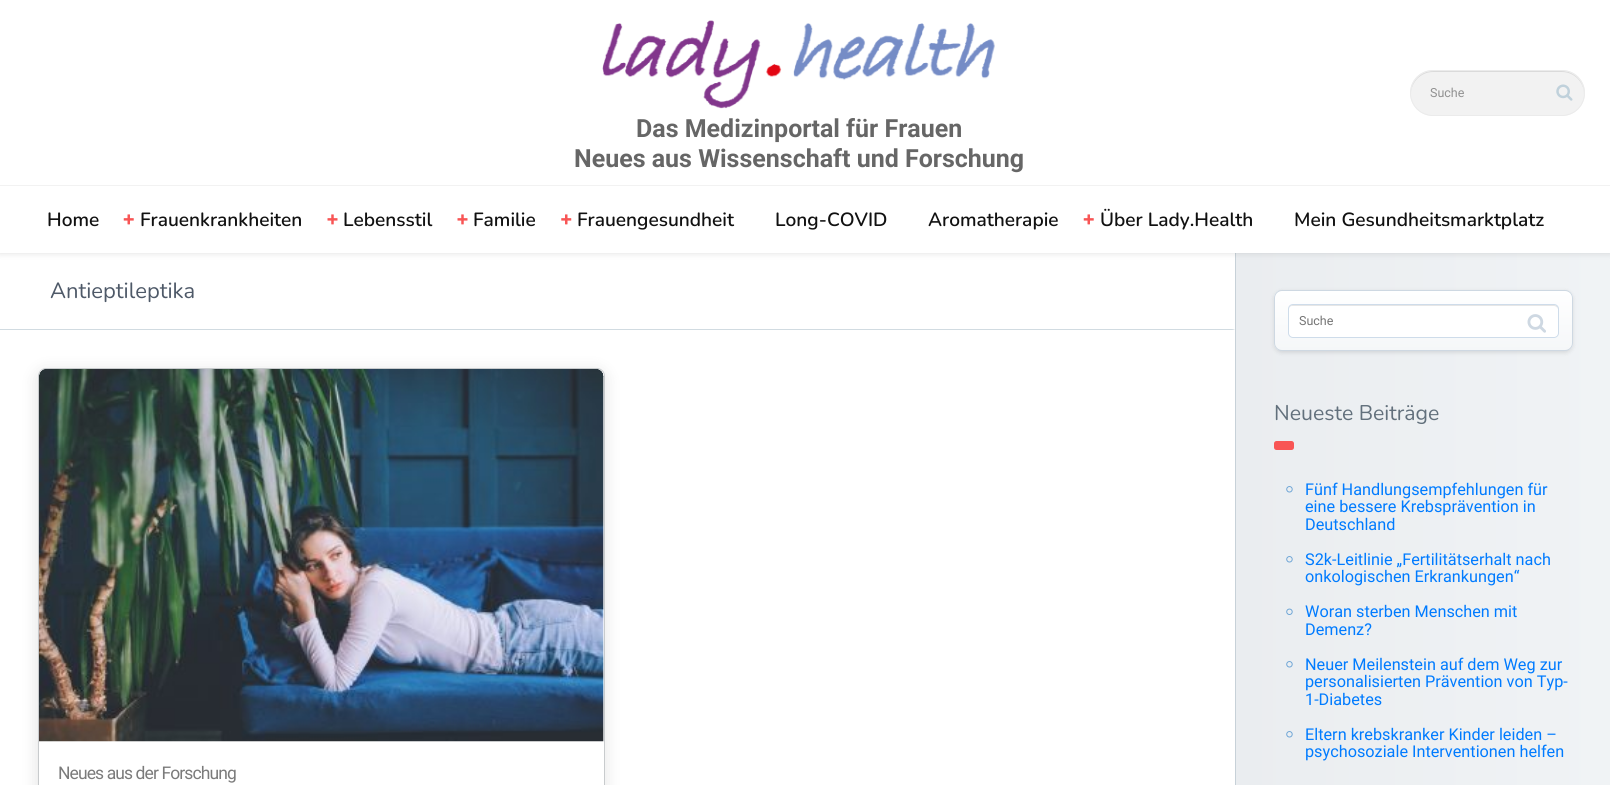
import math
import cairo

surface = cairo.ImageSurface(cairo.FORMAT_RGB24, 1610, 785)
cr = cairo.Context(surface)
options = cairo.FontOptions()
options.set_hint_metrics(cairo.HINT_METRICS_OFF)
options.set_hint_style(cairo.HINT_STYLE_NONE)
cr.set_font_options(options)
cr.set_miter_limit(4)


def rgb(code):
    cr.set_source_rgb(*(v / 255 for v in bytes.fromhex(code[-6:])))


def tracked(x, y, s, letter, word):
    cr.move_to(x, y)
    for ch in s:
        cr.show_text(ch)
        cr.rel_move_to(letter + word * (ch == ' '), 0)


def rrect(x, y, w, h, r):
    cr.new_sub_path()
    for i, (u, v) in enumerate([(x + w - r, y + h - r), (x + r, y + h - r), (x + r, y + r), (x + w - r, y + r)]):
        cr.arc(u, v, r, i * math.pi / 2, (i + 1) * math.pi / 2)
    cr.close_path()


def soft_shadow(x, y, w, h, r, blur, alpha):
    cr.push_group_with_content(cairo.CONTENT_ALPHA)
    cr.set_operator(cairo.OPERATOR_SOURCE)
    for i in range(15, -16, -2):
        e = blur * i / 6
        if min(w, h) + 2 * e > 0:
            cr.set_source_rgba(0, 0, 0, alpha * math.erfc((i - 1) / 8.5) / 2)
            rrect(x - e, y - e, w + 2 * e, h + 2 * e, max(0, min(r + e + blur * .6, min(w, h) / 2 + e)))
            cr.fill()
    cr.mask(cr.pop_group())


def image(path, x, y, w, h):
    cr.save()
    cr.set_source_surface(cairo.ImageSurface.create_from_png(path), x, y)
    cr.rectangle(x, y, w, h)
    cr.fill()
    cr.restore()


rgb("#ffffff")
cr.paint()
rgb("#d1dbe1")
cr.rectangle(0, 329, 1235, 1)
cr.fill()
rgb("#ffffff")
soft_shadow(1234, 253, 375, 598, 63, 1, 1)
gradient = cairo.LinearGradient(1236, 612, 1610, 612)
gradient.add_color_stop_rgba(0, 0.918, 0.929, 0.941, 1)
gradient.add_color_stop_rgba(1, 0.941, 0.953, 0.961, 1)
cr.set_source(gradient)
cr.rectangle(1236, 253, 374, 532)
cr.fill()
rgb("#c7d1d8")
cr.rectangle(1235, 253, 1, 532)
cr.fill()
rgb("#000000")
soft_shadow(-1, -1, 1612, 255, 0, 3, 0.1)
rgb("#ffffff")
cr.rectangle(0, 0, 1610, 253)
cr.fill()
rgb("#f2f2f2")
rrect(1410, 70, 175, 46, 23)
cr.fill()
rgb("#dadada")
cr.new_path()
cr.move_to(1433, 72)
cr.line_to(1562, 72)
cr.curve_to(1574, 72, 1584, 82, 1584, 94)
cr.line_to(1584, 93)
cr.curve_to(1584, 81, 1574, 71, 1562, 71)
cr.line_to(1433, 71)
cr.curve_to(1421, 71, 1411, 81, 1411, 93)
cr.line_to(1411, 94)
cr.curve_to(1411, 82, 1421, 72, 1433, 72)
cr.close_path()
cr.fill()
rrect(1410.5, 70.5, 174, 45, 22.5)
rgb("#ebebeb")
cr.set_line_width(1)
cr.stroke()
image("img/1.png", 1556, 84, 17, 17)
image("img/2.png", 602, 20, 393, 89)
rgb("#f2f2f2")
cr.rectangle(0, 185, 1610, 1)
cr.fill()
image("img/3.png", 123, 214, 11, 11)
image("img/4.png", 327, 214, 11, 11)
image("img/4.png", 457, 214, 11, 11)
image("img/5.png", 561, 214, 11, 11)
image("img/3.png", 1083, 214, 11, 11)
cr.save()
cr.set_fill_rule(cairo.FILL_RULE_EVEN_ODD)
cr.new_path()
cr.move_to(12, 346)
cr.line_to(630, 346)
cr.line_to(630, 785)
cr.line_to(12, 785)
cr.close_path()
cr.move_to(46, 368)
cr.line_to(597, 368)
cr.curve_to(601.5, 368, 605, 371.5, 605, 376)
cr.line_to(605, 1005)
cr.curve_to(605, 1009.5, 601.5, 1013, 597, 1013)
cr.line_to(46, 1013)
cr.curve_to(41.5, 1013, 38, 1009.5, 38, 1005)
cr.line_to(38, 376)
cr.curve_to(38, 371.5, 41.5, 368, 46, 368)
cr.close_path()
cr.clip()
rgb("#000000")
soft_shadow(36, 370, 570, 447, 9, 7.5, 0.1)
cr.restore()
rrect(38.5, 368.5, 566, 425, 7.5)
rgb("#c8cbcd")
cr.stroke()
image("img/6.png", 39, 369, 565, 373)
rgb("#000000")
soft_shadow(1274, 291, 299, 62, 8, 2, 0.1)
cr.save()
rrect(1274, 290, 299, 61, 8)
cr.clip()
gradient = cairo.LinearGradient(1423, 291, 1423, 350)
gradient.add_color_stop_rgba(0, 1, 1, 1, 1)
gradient.add_color_stop_rgba(1, 0.961, 0.969, 0.976, 1)
cr.set_source(gradient)
cr.rectangle(1274, 291, 299, 59)
cr.fill()
cr.restore()
rrect(1274.5, 290.5, 298, 60, 7.5)
rgb("#ced8e2")
cr.stroke()
rgb("#ffffff")
rrect(1288, 304, 271, 34, 5)
cr.fill()
rgb("#e6e6e6")
cr.new_path()
cr.move_to(1292, 306)
cr.line_to(1554, 306)
cr.curve_to(1556, 306, 1558, 308, 1558, 310)
cr.curve_to(1558, 307, 1557, 305, 1554, 305)
cr.line_to(1293, 305)
cr.curve_to(1290, 305, 1289, 307, 1289, 310)
cr.curve_to(1289, 308, 1290, 306, 1292, 306)
cr.close_path()
cr.fill()
rrect(1288.5, 304.5, 270, 33, 4.5)
rgb("#cedcea")
cr.stroke()
image("img/7.png", 1527, 314, 19, 19)
rgb("#f85555")
rrect(1274, 441, 20, 9, 2.5)
cr.fill()
image("img/8.png", 1286, 486, 7, 7)
image("img/8.png", 1286, 556, 7, 7)
image("img/9.png", 1286, 608, 7, 7)
image("img/8.png", 1286, 661, 7, 7)
image("img/8.png", 1286, 731, 7, 7)
cr.select_font_face("Roboto")
cr.set_font_size(12.5)
rgb("#919191")
cr.move_to(1430, 97)
cr.show_text("Suche")
cr.select_font_face("Roboto", cairo.FONT_SLANT_NORMAL, cairo.FONT_WEIGHT_BOLD)
cr.set_font_size(25)
rgb("#666666")
cr.move_to(636, 137)
cr.show_text("Das Medizinportal für Frauen")
cr.move_to(574, 167)
cr.show_text("Neues aus Wissenschaft und Forschung")
cr.select_font_face("Nunito SemiBold")
cr.set_font_size(19.1)
rgb("#111111")
for x, y, s in [
    (47, 226, "Home"),
    (140, 226, "Frauenkrankheiten"),
    (343, 226, "Lebensstil"),
    (473, 226, "Familie"),
    (577, 226, "Frauengesundheit"),
    (775, 226, "Long-COVID"),
    (928, 226, "Aromatherapie"),
    (1100, 226, "Über Lady.Health"),
    (1294, 226, "Mein Gesundheitsmarktplatz"),
]:
    cr.move_to(x, y)
    cr.show_text(s)
cr.select_font_face("Nunito")
cr.set_font_size(22)
rgb("#4e5968")
cr.move_to(50, 298)
cr.show_text("Antieptileptika")
cr.select_font_face("Roboto")
cr.set_font_size(17.5)
rgb("#7b7b7b")
tracked(58, 779, "Neues aus der Forschung", -0.9, 0)
cr.set_font_size(12.5)
rgb("#757575")
cr.move_to(1299, 325)
cr.show_text("Suche")
cr.select_font_face("Nunito")
cr.set_font_size(21.25)
rgb("#62707c")
cr.move_to(1274, 420)
cr.show_text("Neueste Beiträge")
cr.select_font_face("Roboto")
cr.set_font_size(16.25)
rgb("#007bff")
for x, y, s in [
    (1305, 495, "Fünf Handlungsempfehlungen für"),
    (1305, 512, "eine bessere Krebsprävention in"),
    (1305, 530, "Deutschland"),
    (1305, 565, "S2k-Leitlinie „Fertilitätserhalt nach"),
    (1305, 582, "onkologischen Erkrankungen“"),
    (1305, 617, "Woran sterben Menschen mit"),
    (1305, 635, "Demenz?"),
    (1305, 670, "Neuer Meilenstein auf dem Weg zur"),
    (1305, 687, "personalisierten Prävention von Typ-"),
    (1305, 705, "1-Diabetes"),
    (1305, 740, "Eltern krebskranker Kinder leiden –"),
    (1305, 757, "psychosoziale Interventionen helfen"),
]:
    cr.move_to(x, y)
    cr.show_text(s)
surface.write_to_png("page.png")
